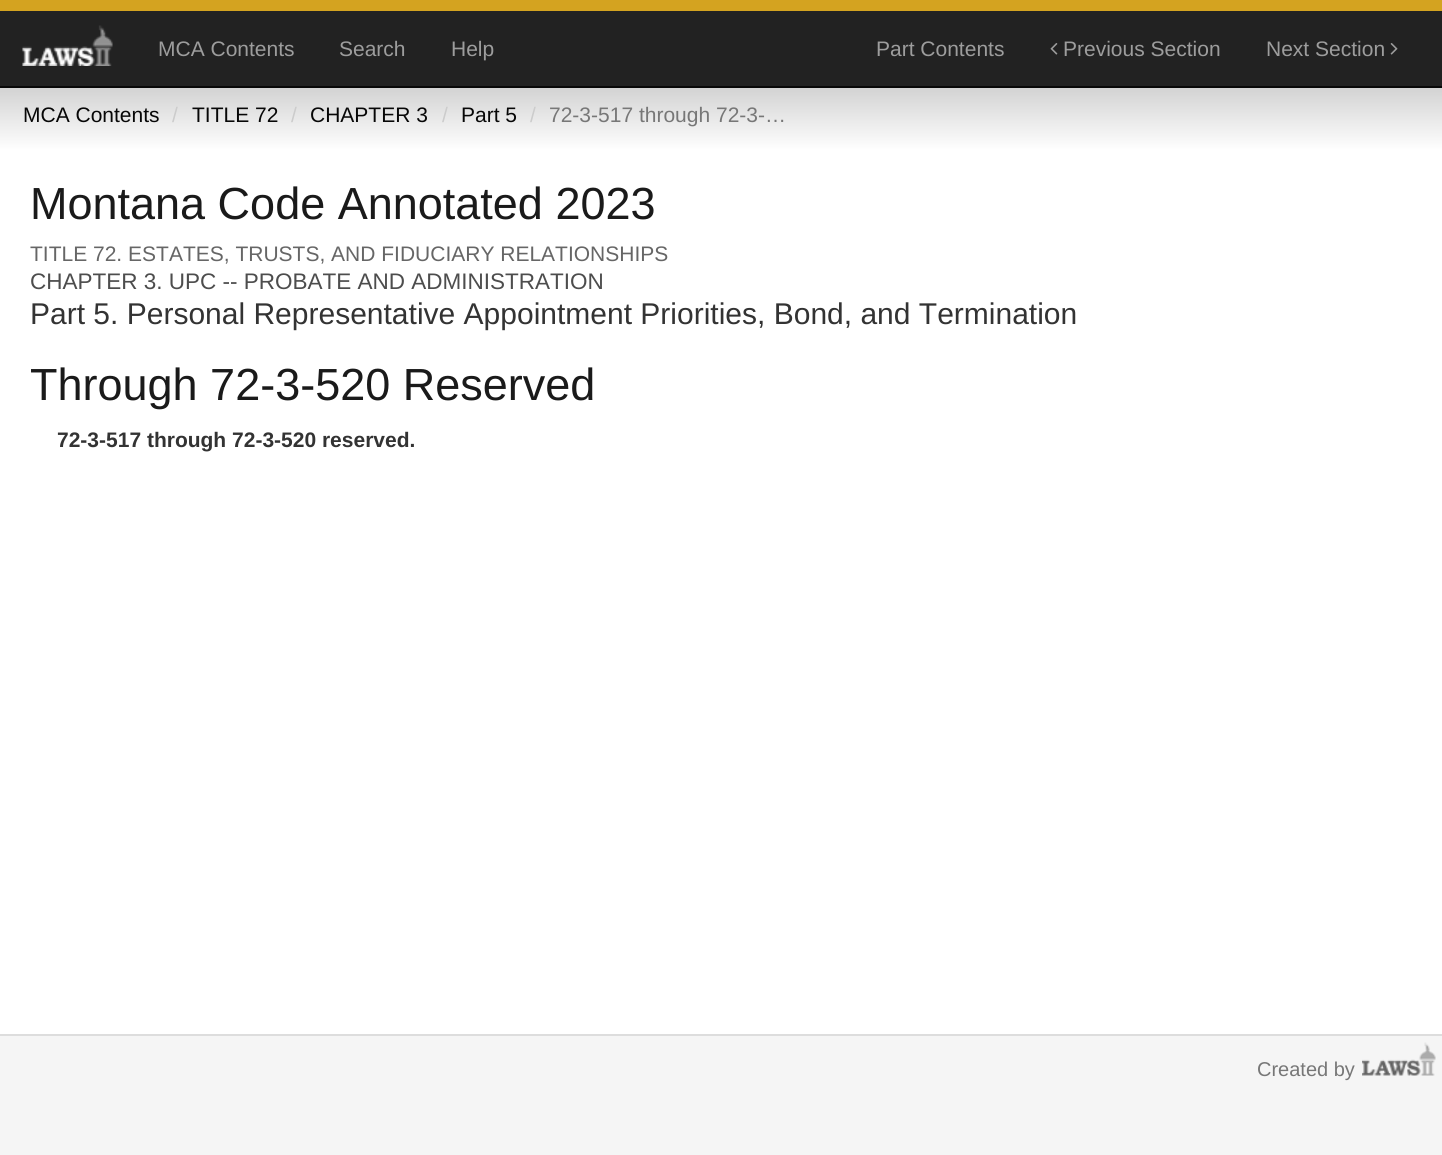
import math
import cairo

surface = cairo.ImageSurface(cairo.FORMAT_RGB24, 1442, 1155)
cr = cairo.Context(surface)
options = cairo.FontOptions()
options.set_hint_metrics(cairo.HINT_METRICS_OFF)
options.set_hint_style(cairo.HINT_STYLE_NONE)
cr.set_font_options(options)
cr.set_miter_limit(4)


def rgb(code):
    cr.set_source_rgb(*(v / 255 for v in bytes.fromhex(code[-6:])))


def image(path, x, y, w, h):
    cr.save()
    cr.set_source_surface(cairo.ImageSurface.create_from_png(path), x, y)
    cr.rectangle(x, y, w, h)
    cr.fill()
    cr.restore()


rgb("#f5f5f5")
cr.paint()
for x, y, w, h, color in [
    (0, 149, 1442, 885, "#ffffff"),
    (0, 11, 1442, 75, "#222222"),
    (0, 0, 1442, 11, "#d4a320"),
    (0, 86, 1442, 2, "#080808"),
]:
    rgb(color)
    cr.rectangle(x, y, w, h)
    cr.fill()
image("img/1.png", 22, 25, 91, 41)
image("img/2.png", 1050, 43, 8, 12)
image("img/3.png", 1390, 43, 8, 12)
gradient = cairo.LinearGradient(722, 87, 722, 149)
gradient.add_color_stop_rgba(0, 0.824, 0.824, 0.824, 1)
gradient.add_color_stop_rgba(1, 0.996, 0.996, 0.996, 1)
cr.set_source(gradient)
cr.rectangle(0, 88, 1442, 61)
cr.fill()
rgb("#dddddd")
cr.rectangle(0, 1034, 1442, 2)
cr.fill()
image("img/4.png", 1362, 1042, 74, 34)
cr.select_font_face("Liberation Sans")
cr.set_font_size(21)
rgb("#9d9d9d")
for x, y, s in [
    (158, 56, "MCA Contents"),
    (339, 56, "Search"),
    (451, 56, "Help"),
    (876, 56, "Part Contents"),
    (1063, 56, "Previous Section"),
    (1266, 56, "Next Section"),
]:
    cr.move_to(x, y)
    cr.show_text(s)
rgb("#070707")
cr.move_to(23, 122)
cr.show_text("MCA Contents")
rgb("#cccccc")
cr.move_to(172, 122)
cr.show_text("/")
rgb("#070707")
cr.move_to(192, 122)
cr.show_text("TITLE 72")
rgb("#cccccc")
cr.move_to(291, 122)
cr.show_text("/")
rgb("#070707")
cr.move_to(310, 122)
cr.show_text("CHAPTER 3")
rgb("#cccccc")
cr.move_to(442, 122)
cr.show_text("/")
rgb("#070707")
cr.move_to(461, 122)
cr.show_text("Part 5")
rgb("#cccccc")
cr.move_to(530, 122)
cr.show_text("/")
rgb("#777777")
cr.move_to(549, 122)
cr.show_text("72-3-517 through 72-3-…")
cr.set_font_size(45)
rgb("#1a1a1a")
cr.move_to(30, 219)
cr.show_text("Montana Code Annotated 2023")
cr.set_font_size(21)
rgb("#666666")
cr.move_to(30, 261)
cr.show_text("TITLE 72. ESTATES, TRUSTS, AND FIDUCIARY RELATIONSHIPS")
cr.set_font_size(22.5)
rgb("#4d4d4d")
cr.move_to(30, 289)
cr.show_text("CHAPTER 3. UPC -- PROBATE AND ADMINISTRATION")
cr.set_font_size(30)
rgb("#333333")
cr.move_to(30, 324)
cr.show_text("Part 5. Personal Representative Appointment Priorities, Bond, and Termination")
cr.set_font_size(45)
rgb("#1a1a1a")
cr.move_to(30, 400)
cr.show_text("Through 72-3-520 Reserved")
cr.select_font_face("Liberation Sans", cairo.FONT_SLANT_NORMAL, cairo.FONT_WEIGHT_BOLD)
cr.set_font_size(21)
rgb("#333333")
cr.move_to(57, 447)
cr.show_text("72-3-517 through 72-3-520 reserved.")
cr.select_font_face("Liberation Sans")
cr.set_font_size(20)
rgb("#777777")
cr.move_to(1257, 1076)
cr.show_text("Created by")
surface.write_to_png("page.png")
